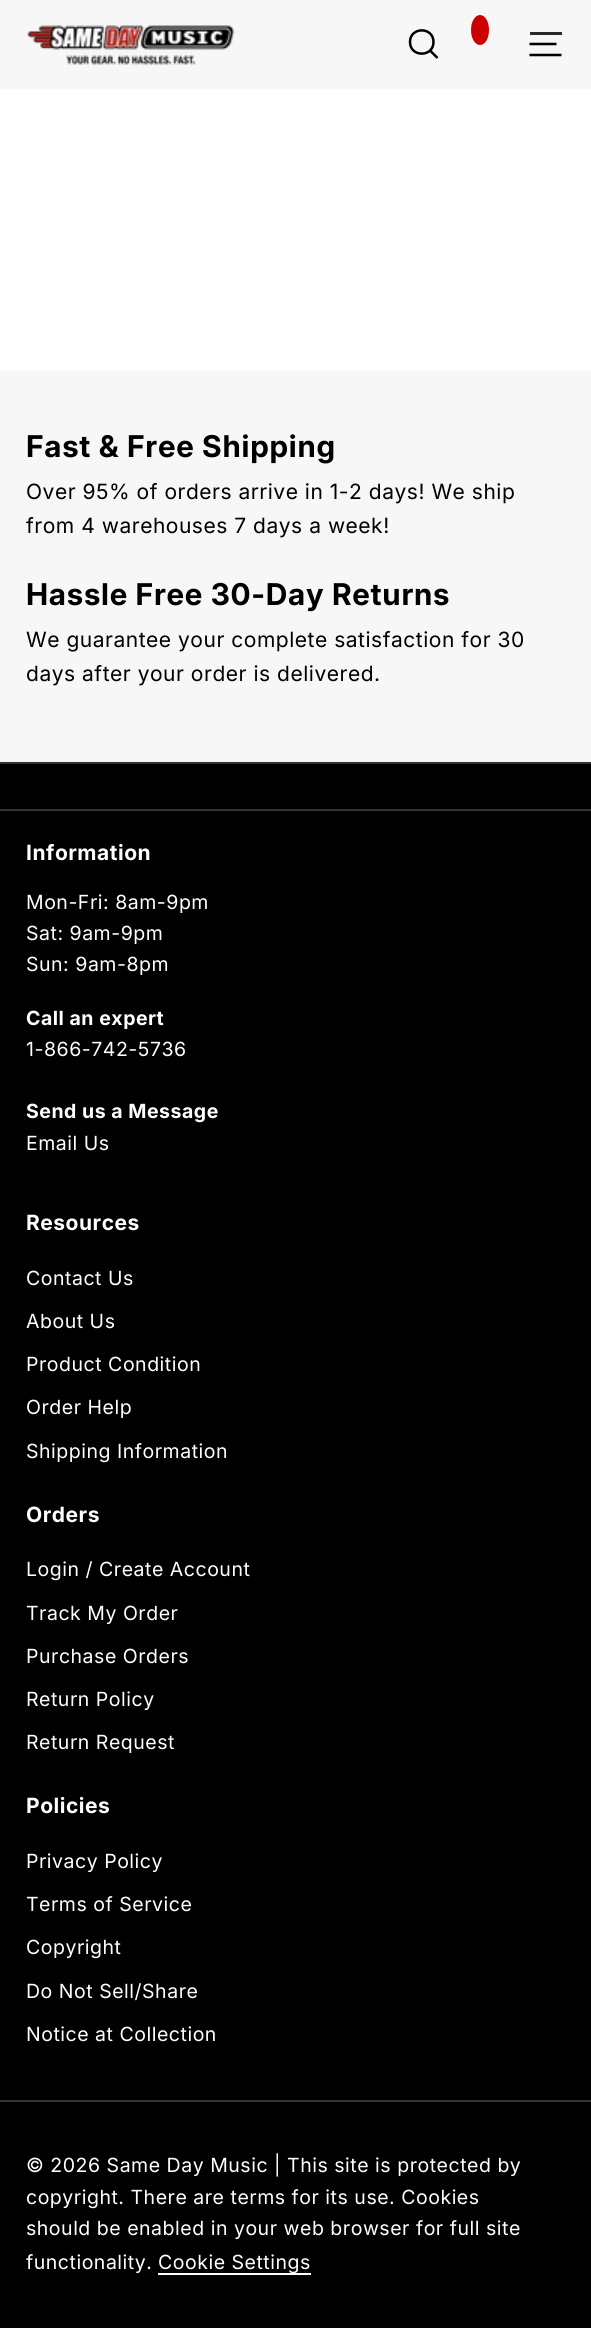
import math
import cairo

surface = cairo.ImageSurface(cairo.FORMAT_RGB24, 591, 2328)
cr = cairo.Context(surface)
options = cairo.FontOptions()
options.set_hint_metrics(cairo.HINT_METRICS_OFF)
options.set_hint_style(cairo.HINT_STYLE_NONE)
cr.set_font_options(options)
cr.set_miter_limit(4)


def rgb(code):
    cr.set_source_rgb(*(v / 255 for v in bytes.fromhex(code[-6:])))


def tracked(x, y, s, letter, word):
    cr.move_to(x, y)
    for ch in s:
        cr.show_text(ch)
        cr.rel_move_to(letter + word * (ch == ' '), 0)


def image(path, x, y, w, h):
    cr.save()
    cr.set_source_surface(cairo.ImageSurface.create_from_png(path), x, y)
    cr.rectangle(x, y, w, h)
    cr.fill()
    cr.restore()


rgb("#ffffff")
cr.paint()
rgb("#f7f7f7")
cr.rectangle(0, 0, 591, 89)
cr.fill()
image("img/1.png", 27, 25, 208, 40)
cr.new_path()
cr.move_to(433.5, 42)
cr.curve_to(433.5, 57.5, 410, 57.5, 410, 42)
cr.curve_to(410, 26.5, 433.5, 26.5, 433.5, 42)
cr.move_to(437.5, 58)
cr.line_to(430, 50.5)
rgb("#000000")
cr.set_line_width(2.5)
cr.set_line_join(cairo.LINE_JOIN_ROUND)
cr.stroke()
rgb("#cc0000")
cr.new_path()
cr.move_to(480, 15)
cr.curve_to(485, 15, 489, 21.5, 489, 30)
cr.curve_to(489, 38.5, 485, 45, 480, 45)
cr.curve_to(475, 45, 471, 38.5, 471, 30)
cr.curve_to(471, 21.5, 475, 15, 480, 15)
cr.close_path()
cr.fill()
rgb("#292929")
cr.rectangle(530, 32, 32, 3)
cr.fill()
cr.new_path()
cr.move_to(529.5, 44)
cr.line_to(556.5, 44)
cr.move_to(529.5, 55)
cr.line_to(561.5, 55)
rgb("#000000")
cr.stroke()
for x, y, w, h, color in [
    (0, 371, 591, 391, "#f7f7f7"),
    (0, 764, 591, 1564, "#000000"),
    (0, 762, 591, 2, "#333333"),
    (0, 809, 591, 2, "#333333"),
    (0, 2100, 591, 2, "#333333"),
    (158, 2273, 153, 2, "#ffffff"),
]:
    rgb(color)
    cr.rectangle(x, y, w, h)
    cr.fill()
cr.select_font_face("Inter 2", cairo.FONT_SLANT_NORMAL, cairo.FONT_WEIGHT_BOLD)
cr.set_font_size(30)
rgb("#000000")
tracked(26, 457, "Fast & Free Shipping", 0.75, 0)
cr.select_font_face("Inter")
cr.set_font_size(21)
tracked(26, 499, "Over 95% of orders arrive in 1-2 days! We ship", 0.52, 0)
tracked(26, 533, "from 4 warehouses 7 days a week!", 0.52, 0)
cr.select_font_face("Inter 2", cairo.FONT_SLANT_NORMAL, cairo.FONT_WEIGHT_BOLD)
cr.set_font_size(30)
tracked(26, 605, "Hassle Free 30-Day Returns", 0.75, 0)
cr.select_font_face("Inter")
cr.set_font_size(21)
tracked(26, 647, "We guarantee your complete satisfaction for 30", 0.52, 0)
tracked(26, 681, "days after your order is delivered.", 0.52, 0)
cr.select_font_face("Inter", cairo.FONT_SLANT_NORMAL, cairo.FONT_WEIGHT_BOLD)
rgb("#ffffff")
tracked(26, 860, "Information", 0.52, 0)
cr.select_font_face("Inter")
cr.set_font_size(19.5)
for x, y, s in [
    (26, 909, "Mon-Fri: 8am-9pm"),
    (26, 940, "Sat: 9am-9pm"),
    (26, 971, "Sun: 9am-8pm"),
]:
    tracked(x, y, s, 0.52, 0)
cr.select_font_face("Inter", cairo.FONT_SLANT_NORMAL, cairo.FONT_WEIGHT_BOLD)
tracked(26, 1025, "Call an expert", 0.52, 0)
cr.select_font_face("Inter")
tracked(26, 1056, "1-866-742-5736", 0.52, 0)
cr.select_font_face("Inter", cairo.FONT_SLANT_NORMAL, cairo.FONT_WEIGHT_BOLD)
tracked(26, 1118, "Send us a Message", 0.52, 0)
cr.select_font_face("Inter")
tracked(26, 1150, "Email Us", 0.52, 0)
cr.select_font_face("Inter", cairo.FONT_SLANT_NORMAL, cairo.FONT_WEIGHT_BOLD)
cr.set_font_size(21)
tracked(26, 1230, "Resources", 0.52, 0)
cr.select_font_face("Inter")
cr.set_font_size(19.5)
for x, y, s in [
    (26, 1285, "Contact Us"),
    (26, 1328, "About Us"),
    (26, 1371, "Product Condition"),
    (26, 1414, "Order Help"),
    (26, 1458, "Shipping Information"),
]:
    tracked(x, y, s, 0.52, 0)
cr.select_font_face("Inter", cairo.FONT_SLANT_NORMAL, cairo.FONT_WEIGHT_BOLD)
cr.set_font_size(21)
tracked(26, 1522, "Orders", 0.52, 0)
cr.select_font_face("Inter")
cr.set_font_size(19.5)
for x, y, s in [
    (26, 1576, "Login / Create Account"),
    (26, 1620, "Track My Order"),
    (26, 1663, "Purchase Orders"),
    (26, 1706, "Return Policy"),
    (26, 1749, "Return Request"),
]:
    tracked(x, y, s, 0.52, 0)
cr.select_font_face("Inter", cairo.FONT_SLANT_NORMAL, cairo.FONT_WEIGHT_BOLD)
cr.set_font_size(21)
tracked(26, 1813, "Policies", 0.52, 0)
cr.select_font_face("Inter")
cr.set_font_size(19.5)
for x, y, s in [
    (26, 1868, "Privacy Policy"),
    (26, 1911, "Terms of Service"),
    (26, 1954, "Copyright"),
    (26, 1998, "Do Not Sell/Share"),
    (26, 2041, "Notice at Collection"),
    (26, 2172, "© 2026 Same Day Music | This site is protected by"),
    (26, 2204, "copyright. There are terms for its use. Cookies"),
    (26, 2235, "should be enabled in your web browser for full site"),
    (26, 2269, "functionality."),
    (158, 2269, "Cookie Settings"),
]:
    tracked(x, y, s, 0.52, 0)
surface.write_to_png("page.png")
